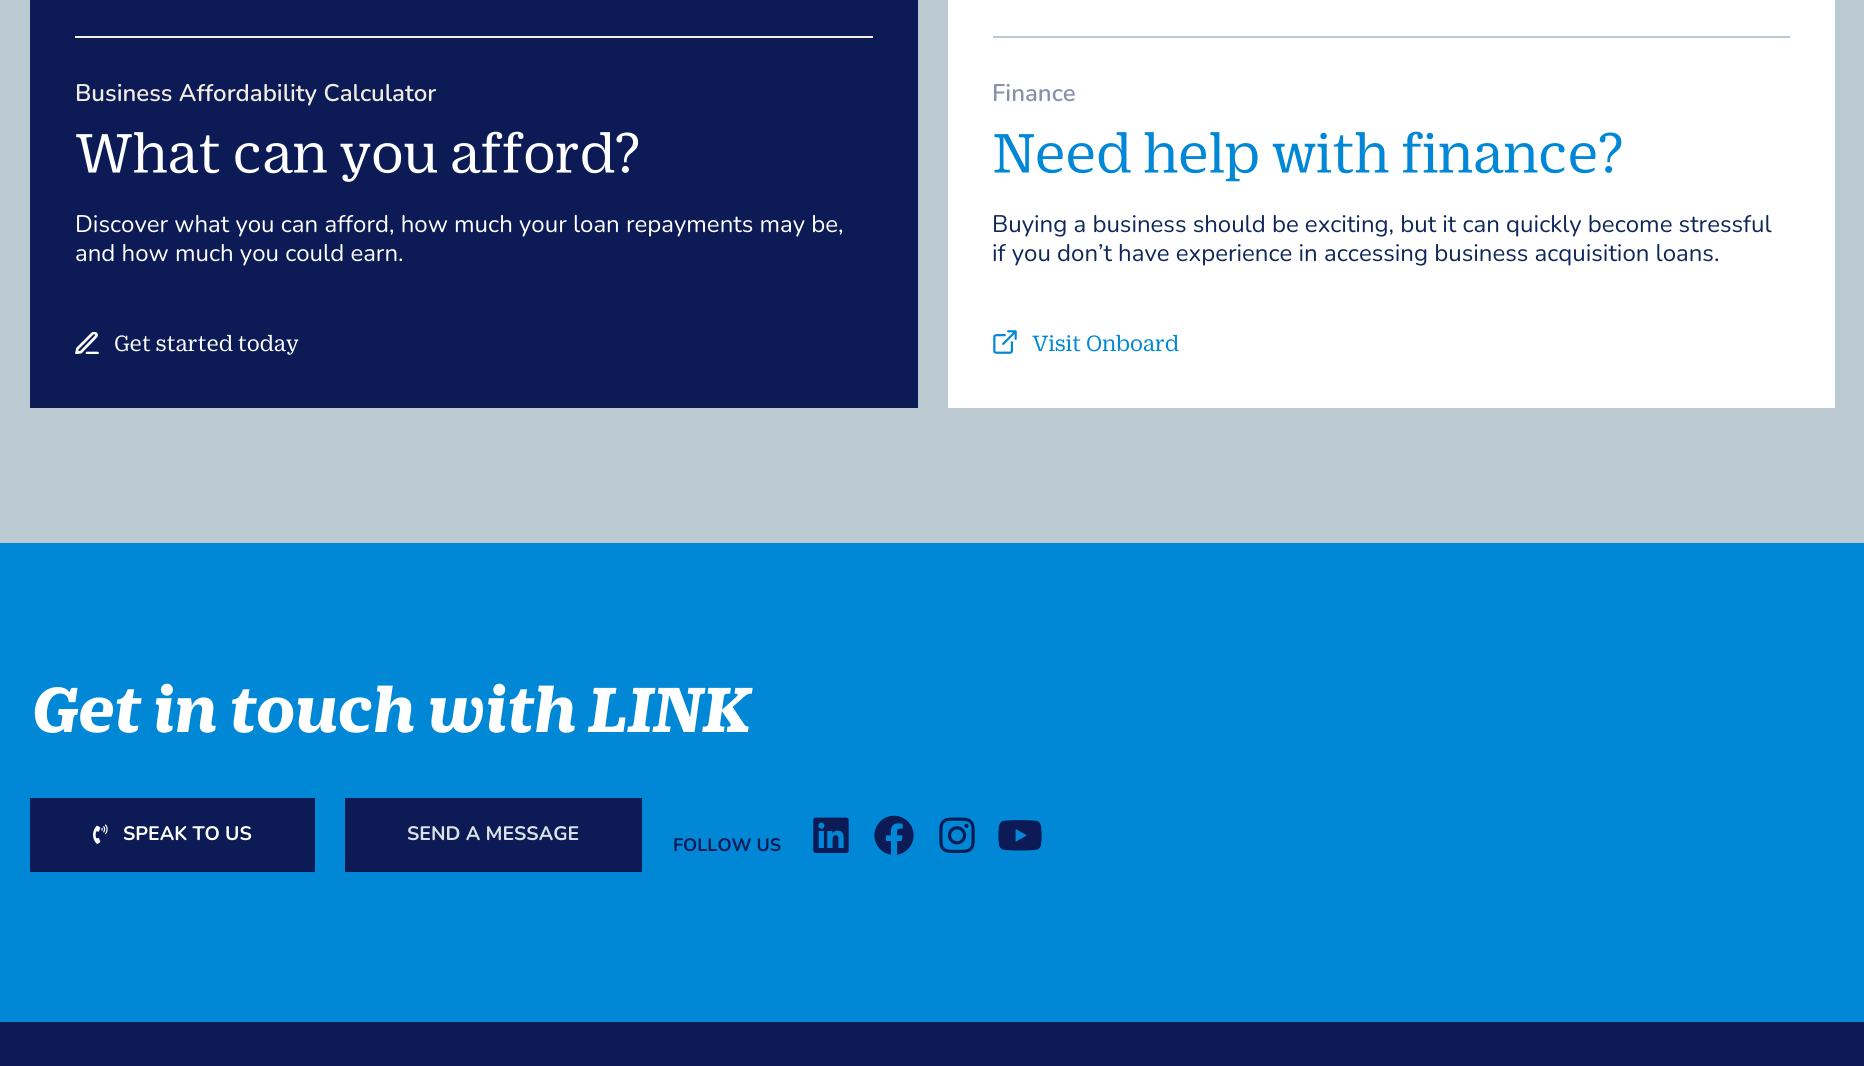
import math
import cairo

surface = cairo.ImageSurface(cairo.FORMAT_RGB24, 1864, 1066)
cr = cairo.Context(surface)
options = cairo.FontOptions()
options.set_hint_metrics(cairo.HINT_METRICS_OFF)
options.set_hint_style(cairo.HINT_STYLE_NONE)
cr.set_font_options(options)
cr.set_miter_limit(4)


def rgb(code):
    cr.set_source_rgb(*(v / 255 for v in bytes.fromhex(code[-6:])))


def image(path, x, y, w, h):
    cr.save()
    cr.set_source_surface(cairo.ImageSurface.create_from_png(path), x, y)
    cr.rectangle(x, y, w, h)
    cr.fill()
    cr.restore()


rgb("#bbc9d0")
cr.paint()
rgb("#0c1b55")
cr.rectangle(30, 0, 888, 408)
cr.fill()
rgb("#f1ece2")
cr.rectangle(75, 36, 798, 2)
cr.fill()
image("img/1.png", 76, 131, 563, 51)
cr.save()
cr.rectangle(75, 332, 24, 22)
cr.clip()
cr.new_path()
cr.move_to(87, 353)
cr.line_to(97.5, 353)
cr.move_to(92.5, 333.5)
cr.curve_to(94.5, 331.5, 98, 334.5, 96, 336.5)
cr.line_to(81, 352)
cr.line_to(76.5, 353)
cr.line_to(77.5, 348.5)
cr.close_path()
rgb("#ffffff")
cr.set_line_width(2.7)
cr.set_line_cap(cairo.LINE_CAP_ROUND)
cr.set_line_join(cairo.LINE_JOIN_ROUND)
cr.stroke()
cr.restore()
image("img/2.png", 115, 334, 184, 21)
rgb("#ffffff")
cr.rectangle(948, 0, 887, 408)
cr.fill()
rgb("#bbc9d0")
cr.rectangle(993, 36, 797, 2)
cr.fill()
image("img/3.png", 994, 131, 628, 51)
image("img/4.png", 993, 330, 24, 24)
image("img/5.png", 1032, 334, 147, 18)
rgb("#0087d6")
cr.rectangle(0, 543, 1864, 479)
cr.fill()
image("img/6.png", 34, 683, 719, 50)
rgb("#0c1b55")
cr.rectangle(30, 798, 285, 74)
cr.fill()
image("img/7.png", 93, 824, 15, 20)
cr.rectangle(345, 798, 297, 74)
cr.fill()
image("img/8.png", 813, 817, 36, 36)
image("img/9.png", 874, 815, 40, 40)
image("img/10.png", 939, 817, 36, 36)
image("img/11.png", 998, 820, 44, 31)
cr.rectangle(0, 1022, 1864, 44)
cr.fill()
cr.select_font_face("Nunito SemiBold")
cr.set_font_size(24)
rgb("#f1ece2")
cr.move_to(75, 101)
cr.show_text("Business Affordability Calculator")
cr.select_font_face("Nunito")
rgb("#ffffff")
cr.move_to(75, 232)
cr.show_text("Discover what you can afford, how much your loan repayments may be,")
cr.move_to(75, 261)
cr.show_text("and how much you could earn.")
cr.select_font_face("Nunito SemiBold")
rgb("#8692ac")
cr.move_to(992, 101)
cr.show_text("Finance")
cr.select_font_face("Nunito")
rgb("#0f275a")
cr.move_to(992, 232)
cr.show_text("Buying a business should be exciting, but it can quickly become stressful")
cr.move_to(992, 261)
cr.show_text("if you don’t have experience in accessing business acquisition loans.")
cr.select_font_face("Nunito", cairo.FONT_SLANT_NORMAL, cairo.FONT_WEIGHT_BOLD)
cr.set_font_size(19.5)
rgb("#ffffff")
cr.move_to(123, 840)
cr.show_text("SPEAK TO US")
rgb("#dae2e7")
cr.move_to(407, 840)
cr.show_text("SEND A MESSAGE")
cr.set_font_size(18)
rgb("#0c1b55")
cr.move_to(673, 851)
cr.show_text("FOLLOW US")
surface.write_to_png("page.png")
